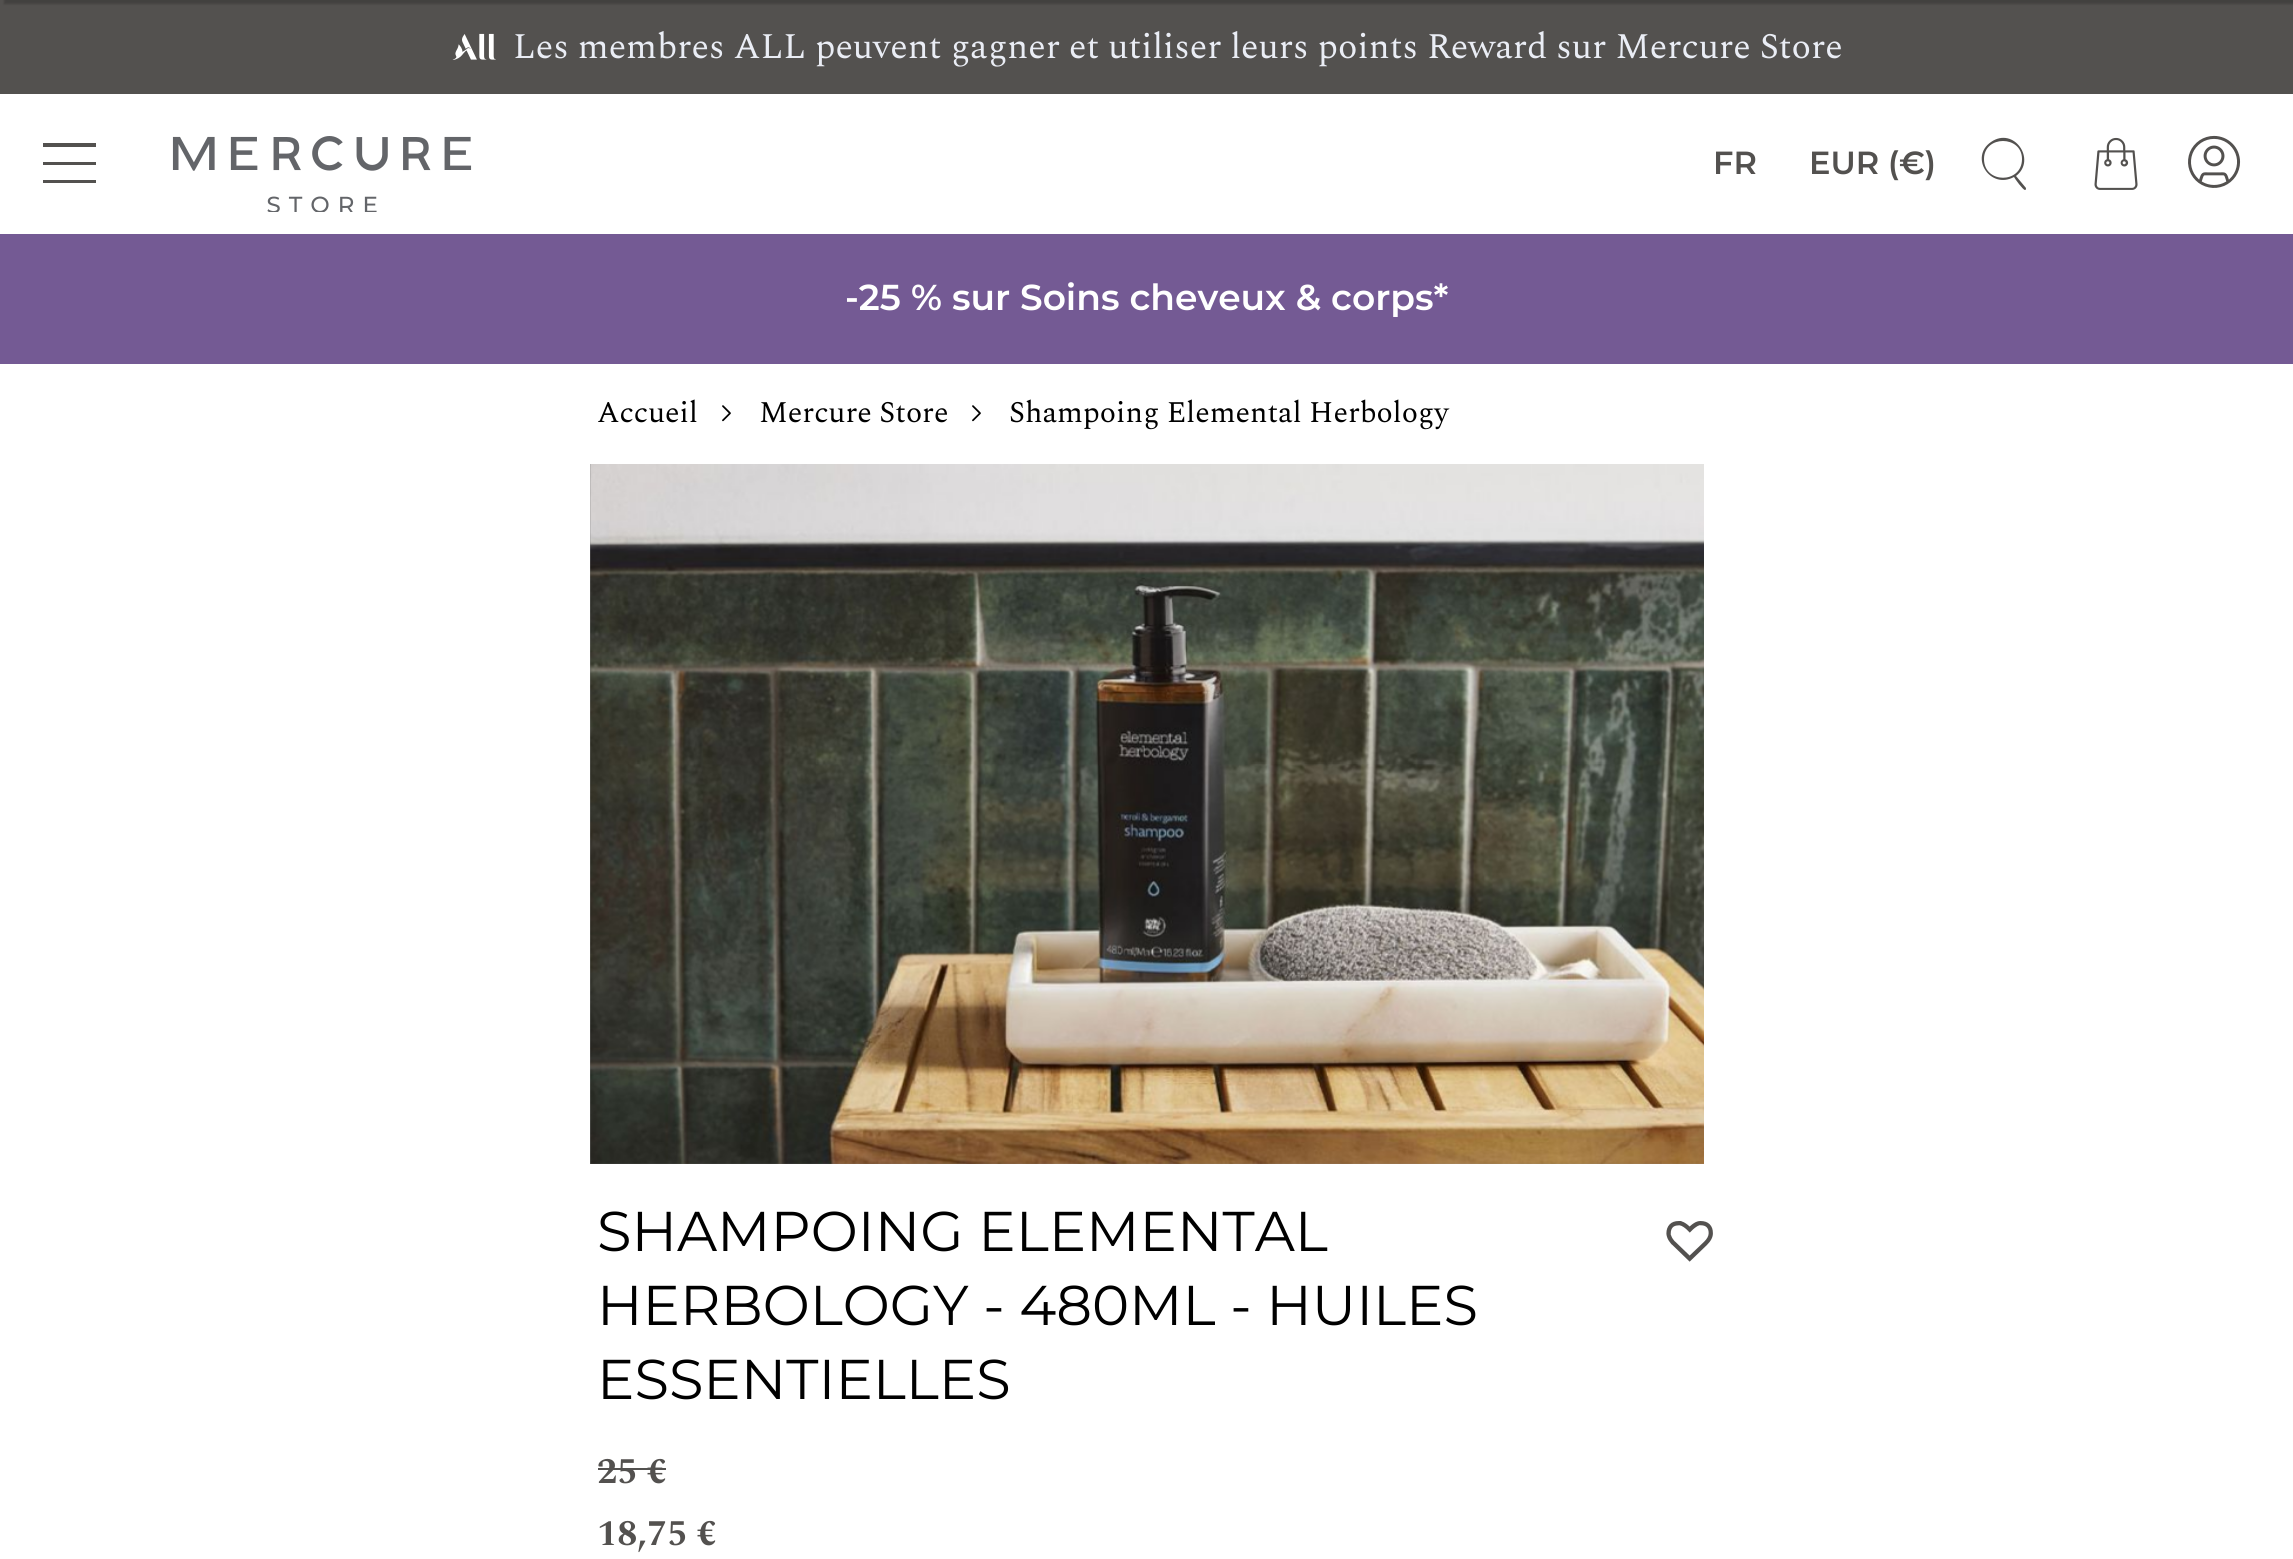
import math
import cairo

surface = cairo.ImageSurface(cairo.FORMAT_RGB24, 2293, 1559)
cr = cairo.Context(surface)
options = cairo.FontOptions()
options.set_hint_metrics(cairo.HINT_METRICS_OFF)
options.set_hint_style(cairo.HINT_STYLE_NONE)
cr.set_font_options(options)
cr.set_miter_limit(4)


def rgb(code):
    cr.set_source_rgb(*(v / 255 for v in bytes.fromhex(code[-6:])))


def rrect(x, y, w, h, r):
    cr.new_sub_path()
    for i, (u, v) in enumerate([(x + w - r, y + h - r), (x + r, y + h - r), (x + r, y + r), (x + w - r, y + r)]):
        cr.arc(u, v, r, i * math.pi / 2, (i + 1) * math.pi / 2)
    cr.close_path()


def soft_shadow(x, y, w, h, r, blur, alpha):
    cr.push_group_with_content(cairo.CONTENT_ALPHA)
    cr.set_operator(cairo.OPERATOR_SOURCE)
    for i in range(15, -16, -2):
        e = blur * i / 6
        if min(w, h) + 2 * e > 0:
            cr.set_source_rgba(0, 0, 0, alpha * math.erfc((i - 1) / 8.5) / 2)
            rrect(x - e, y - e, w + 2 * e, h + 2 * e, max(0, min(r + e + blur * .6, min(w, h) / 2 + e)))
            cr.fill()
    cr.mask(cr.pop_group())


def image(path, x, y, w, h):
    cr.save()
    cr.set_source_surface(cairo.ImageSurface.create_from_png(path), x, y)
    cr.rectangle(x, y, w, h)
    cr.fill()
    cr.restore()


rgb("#ffffff")
cr.paint()
rgb("#53514f")
cr.rectangle(0, 0, 2293, 94)
cr.fill()
rgb("#000000")
soft_shadow(4, -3, 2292, 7, 0, 1, 0.2)
image("img/1.png", 452, 33, 44, 27)
image("img/2.png", 172, 136, 300, 76)
rgb("#53514f")
cr.new_path()
cr.move_to(43, 143)
cr.line_to(96, 143)
cr.line_to(96, 147)
cr.line_to(43, 147)
cr.close_path()
cr.move_to(43, 162)
cr.line_to(96, 162)
cr.line_to(96, 165)
cr.line_to(43, 165)
cr.close_path()
cr.move_to(43, 180)
cr.line_to(96, 180)
cr.line_to(96, 183)
cr.line_to(43, 183)
cr.close_path()
cr.fill()
cr.new_path()
cr.move_to(2026, 188)
cr.line_to(2016, 176)
cr.curve_to(2037, 160, 2014, 126, 1991, 142)
cr.curve_to(1969, 157, 1990, 190, 2014, 177)
cr.curve_to(2015, 179, 2023, 190, 2025, 190)
cr.curve_to(2026, 190, 2026, 189, 2026, 188)
cr.close_path()
cr.move_to(1984, 159)
cr.curve_to(1984, 135, 2022, 135, 2022, 159)
cr.curve_to(2022, 184, 1984, 184, 1984, 159)
cr.close_path()
cr.fill()
image("img/3.png", 2094, 137, 44, 53)
image("img/4.png", 2188, 135, 53, 53)
rgb("#745a94")
cr.rectangle(0, 234, 2293, 130)
cr.fill()
image("img/5.png", 722, 405, 9, 17)
image("img/5.png", 972, 405, 9, 17)
gradient = cairo.LinearGradient(590, 814, 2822, 814)
gradient.add_color_stop_rgba(0, 0.502, 0.502, 0.502, 1)
gradient.add_color_stop_rgba(1, 0.702, 0.702, 0.702, 1)
cr.set_source(gradient)
cr.rectangle(590, 464, 1114, 700)
cr.fill()
image("img/6.png", 590, 464, 1114, 700)
image("img/7.png", 1666, 1221, 47, 41)
rgb("#53514f")
cr.rectangle(598, 1468, 68, 2)
cr.fill()
cr.select_font_face("Spectral")
cr.set_font_size(36)
rgb("#eaedf5")
cr.move_to(513, 58)
cr.show_text("Les membres ALL peuvent gagner et utiliser leurs points Reward sur Mercure Store")
cr.select_font_face("Montserrat SemiBold")
cr.set_font_size(32)
rgb("#53514f")
cr.move_to(1713, 174)
cr.show_text("FR")
cr.move_to(1809, 174)
cr.show_text("EUR (€)")
cr.set_font_size(36)
rgb("#ffffff")
cr.move_to(845, 310)
cr.show_text("-25")
cr.move_to(911, 310)
cr.show_text("% sur Soins cheveux & corps*")
cr.select_font_face("Spectral")
cr.set_font_size(30)
rgb("#000000")
for x, y, s in [
    (597, 422, "Accueil"),
    (759, 422, "Mercure Store"),
    (1009, 422, "Shampoing Elemental Herbology"),
]:
    cr.move_to(x, y)
    cr.show_text(s)
cr.select_font_face("Montserrat")
cr.set_font_size(56)
for x, y, s in [
    (597, 1251, "SHAMPOING ELEMENTAL"),
    (597, 1325, "HERBOLOGY - 480ML - HUILES"),
    (597, 1399, "ESSENTIELLES"),
]:
    cr.move_to(x, y)
    cr.show_text(s)
cr.select_font_face("Spectral", cairo.FONT_SLANT_NORMAL, cairo.FONT_WEIGHT_BOLD)
cr.set_font_size(36)
rgb("#53514f")
cr.move_to(597, 1483)
cr.show_text("25 €")
cr.move_to(597, 1545)
cr.show_text("18,75 €")
surface.write_to_png("page.png")
